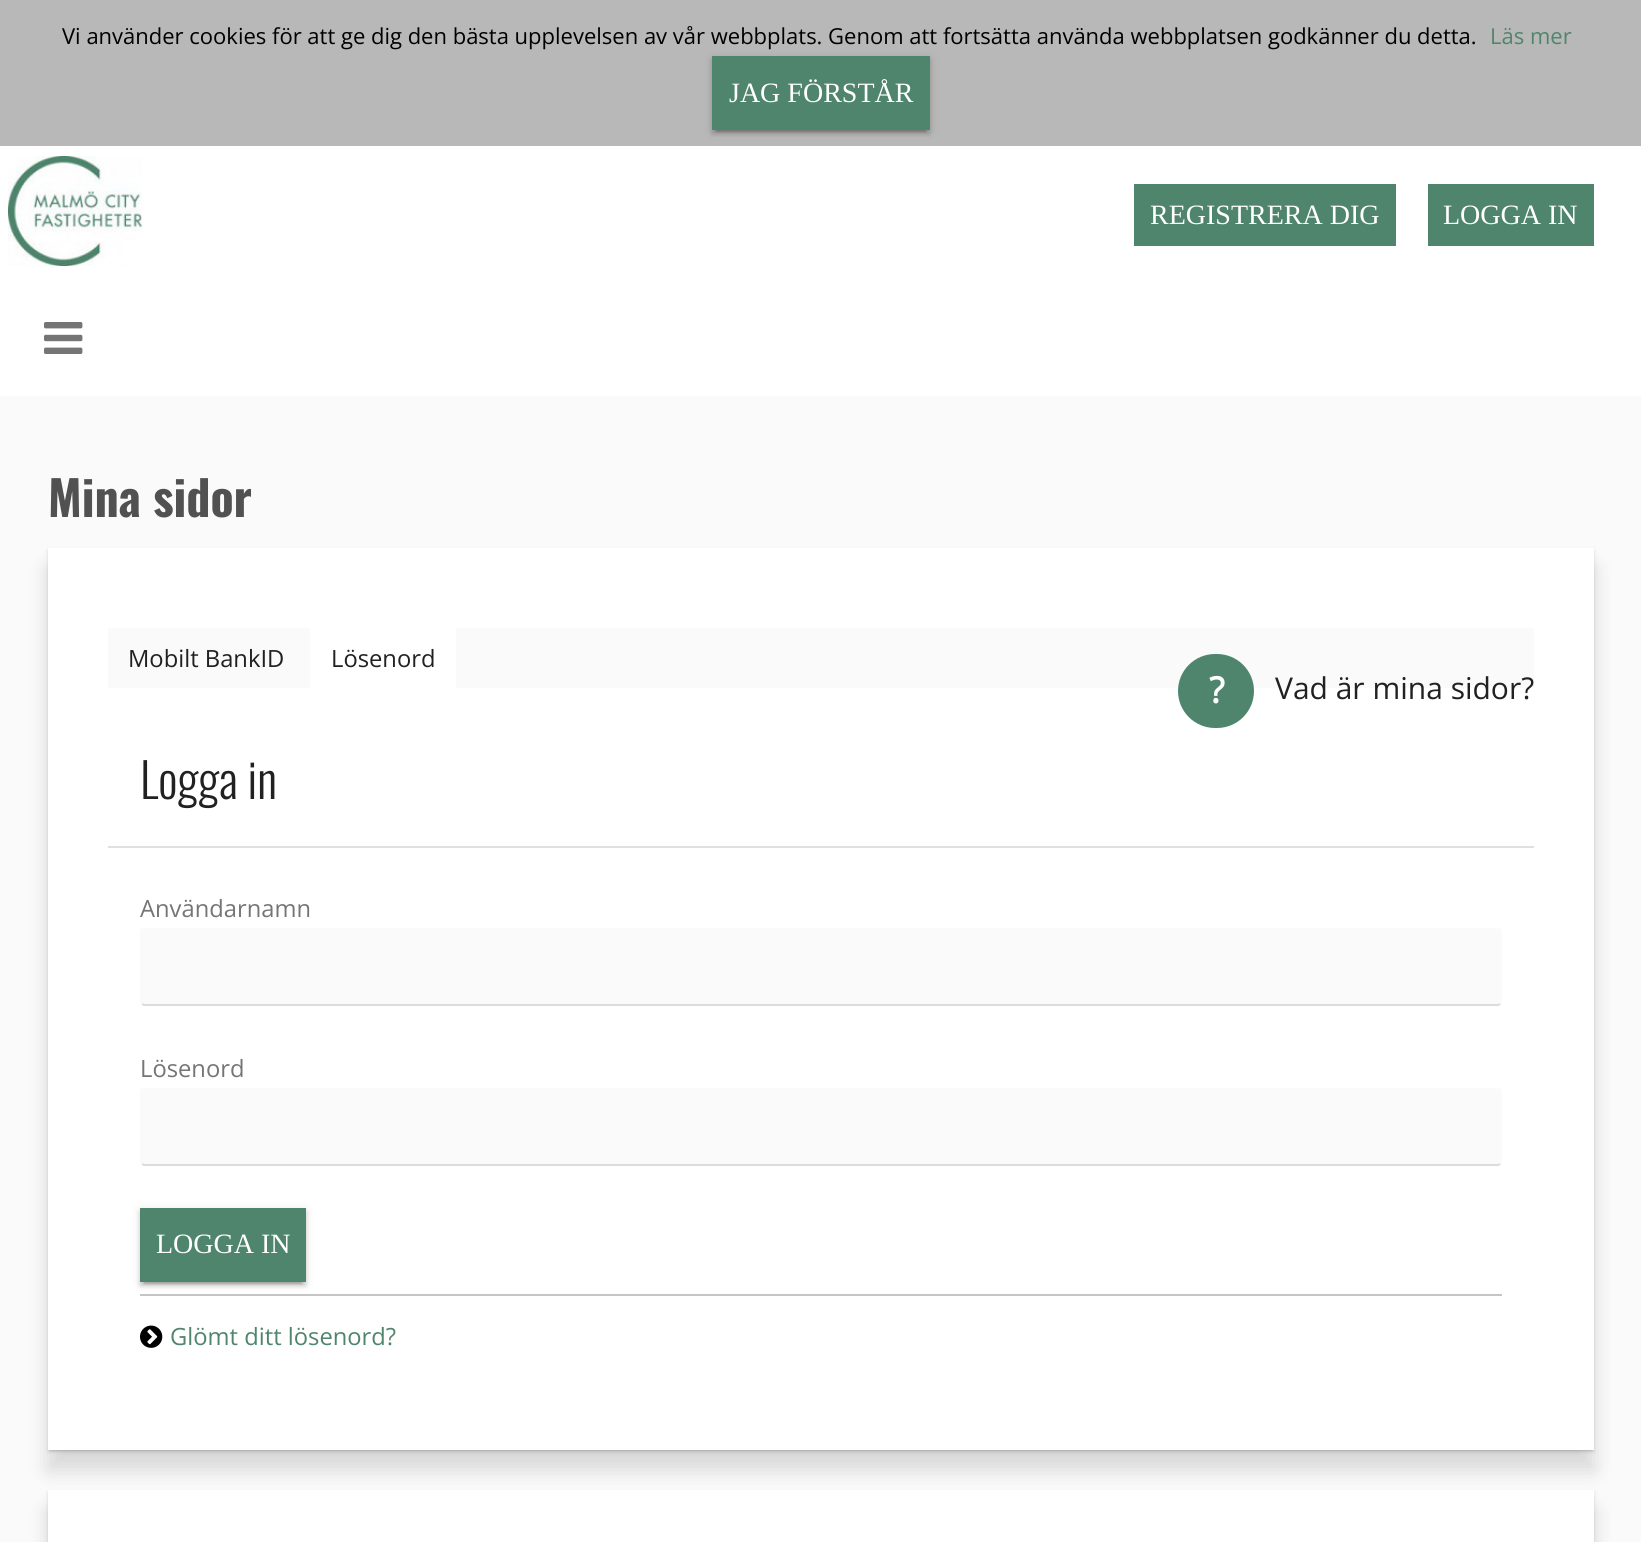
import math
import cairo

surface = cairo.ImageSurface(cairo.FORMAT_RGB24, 1641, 1542)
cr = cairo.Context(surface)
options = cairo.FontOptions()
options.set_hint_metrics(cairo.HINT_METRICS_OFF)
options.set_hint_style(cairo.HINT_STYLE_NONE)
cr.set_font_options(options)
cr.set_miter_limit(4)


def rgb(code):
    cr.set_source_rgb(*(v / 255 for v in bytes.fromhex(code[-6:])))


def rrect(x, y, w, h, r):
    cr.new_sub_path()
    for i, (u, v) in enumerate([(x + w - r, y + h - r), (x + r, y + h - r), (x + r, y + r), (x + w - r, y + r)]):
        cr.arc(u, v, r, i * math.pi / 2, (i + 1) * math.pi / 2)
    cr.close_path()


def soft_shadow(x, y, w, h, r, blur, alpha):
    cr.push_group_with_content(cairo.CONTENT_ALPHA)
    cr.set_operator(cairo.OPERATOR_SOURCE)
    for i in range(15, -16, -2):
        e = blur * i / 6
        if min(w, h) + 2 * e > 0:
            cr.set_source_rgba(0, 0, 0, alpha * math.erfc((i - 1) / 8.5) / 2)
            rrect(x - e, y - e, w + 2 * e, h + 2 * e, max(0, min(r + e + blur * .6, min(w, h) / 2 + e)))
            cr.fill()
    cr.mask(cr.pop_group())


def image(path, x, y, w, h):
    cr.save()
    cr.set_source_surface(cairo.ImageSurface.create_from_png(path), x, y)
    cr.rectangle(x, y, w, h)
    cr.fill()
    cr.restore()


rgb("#fafafa")
cr.paint()
rgb("#b9b8b8")
cr.rectangle(0, 0, 1641, 146)
cr.fill()
rgb("#000000")
soft_shadow(712, 58, 218, 74, 0, 5, 0.12)
soft_shadow(716, 66, 210, 66, 0, 1, 0.2)
soft_shadow(712, 60, 218, 74, 0, 2, 0.14)
rgb("#4f856d")
cr.rectangle(712, 56, 218, 74)
cr.fill()
rgb("#ffffff")
cr.rectangle(0, 146, 1641, 250)
cr.fill()
image("img/1.png", 8, 156, 134, 110)
rgb("#4f856d")
cr.rectangle(1134, 184, 262, 62)
cr.fill()
cr.rectangle(1428, 184, 166, 62)
cr.fill()
image("img/2.png", 44, 322, 39, 32)
rgb("#000000")
soft_shadow(48, 550, 1546, 902, 0, 2, 0.12)
soft_shadow(50, 552, 1542, 898, 0, 1, 0.2)
soft_shadow(48, 568, 1546, 902, 0, 10, 0.14)
for x, y, w, h, color in [
    (48, 548, 1546, 902, "#ffffff"),
    (108, 628, 1426, 60, "#fafafa"),
    (310, 628, 146, 60, "#ffffff"),
    (108, 846, 1426, 2, "#e0e0e0"),
]:
    rgb(color)
    cr.rectangle(x, y, w, h)
    cr.fill()
rgb("#fafafa")
rrect(140, 928, 1362, 78, 4)
cr.fill()
cr.new_path()
cr.move_to(1500, 1004)
cr.line_to(1498, 1005)
cr.line_to(144, 1005)
cr.line_to(142, 1004)
rgb("#dcdcdc")
cr.stroke()
rgb("#fafafa")
rrect(140, 1088, 1362, 78, 4)
cr.fill()
cr.new_path()
cr.move_to(1500, 1164)
cr.line_to(1498, 1165)
cr.line_to(144, 1165)
cr.line_to(142, 1164)
rgb("#dcdcdc")
cr.stroke()
rgb("#000000")
soft_shadow(140, 1210, 166, 74, 0, 5, 0.12)
soft_shadow(144, 1218, 158, 66, 0, 1, 0.2)
soft_shadow(140, 1212, 166, 74, 0, 2, 0.14)
rgb("#4f856d")
cr.rectangle(140, 1208, 166, 74)
cr.fill()
rgb("#c5c5c5")
cr.rectangle(140, 1294, 1362, 2)
cr.fill()
image("img/3.png", 140, 1325, 23, 23)
rgb("#4f856d")
rrect(1178, 654, 76, 74, 37)
cr.fill()
rgb("#000000")
soft_shadow(48, 1492, 1546, 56, 0, 2, 0.12)
soft_shadow(48, 1510, 1546, 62, 0, 10, 0.14)
rgb("#ffffff")
cr.rectangle(48, 1490, 1546, 52)
cr.fill()
cr.select_font_face("Open Sans")
cr.set_font_size(22)
rgb("#000000")
cr.move_to(62, 44)
cr.show_text("Vi använder cookies för att ge dig den bästa upplevelsen av vår webbplats. Genom att fortsätta använda webbplatsen godkänner du detta.")
rgb("#4f856d")
cr.move_to(1490, 44)
cr.show_text("Läs mer")
cr.select_font_face("Liberation Serif")
cr.set_font_size(28)
rgb("#ffffff")
for x, y, s in [
    (729, 102, "JAG FÖRSTÅR"),
    (1150, 224, "REGISTRERA DIG"),
    (1443, 224, "LOGGA IN"),
]:
    cr.move_to(x, y)
    cr.show_text(s)
cr.select_font_face("Oswald", cairo.FONT_SLANT_NORMAL, cairo.FONT_WEIGHT_BOLD)
cr.set_font_size(48)
rgb("#515151")
cr.move_to(48, 517)
cr.show_text("Mina sidor")
cr.select_font_face("Open Sans")
cr.set_font_size(23.75)
rgb("#212121")
cr.move_to(128, 667)
cr.show_text("Mobilt BankID")
cr.move_to(331, 667)
cr.show_text("Lösenord")
cr.select_font_face("Oswald Light")
cr.set_font_size(48)
cr.move_to(140, 799)
cr.show_text("Logga in")
cr.select_font_face("Open Sans")
cr.set_font_size(23.75)
rgb("#757575")
cr.move_to(140, 917)
cr.show_text("Användarnamn")
cr.move_to(140, 1077)
cr.show_text("Lösenord")
cr.select_font_face("Liberation Serif")
cr.set_font_size(28)
rgb("#ffffff")
cr.move_to(156, 1253)
cr.show_text("LOGGA IN")
cr.select_font_face("Open Sans")
cr.set_font_size(23.75)
rgb("#4f856d")
cr.move_to(170, 1345)
cr.show_text("Glömt ditt lösenord?")
cr.select_font_face("Open Sans", cairo.FONT_SLANT_NORMAL, cairo.FONT_WEIGHT_BOLD)
cr.set_font_size(36)
rgb("#ffffff")
cr.move_to(1209, 703)
cr.show_text("?")
cr.select_font_face("Open Sans")
cr.set_font_size(30)
rgb("#212121")
cr.move_to(1275, 699)
cr.show_text("Vad är mina sidor?")
surface.write_to_png("page.png")
